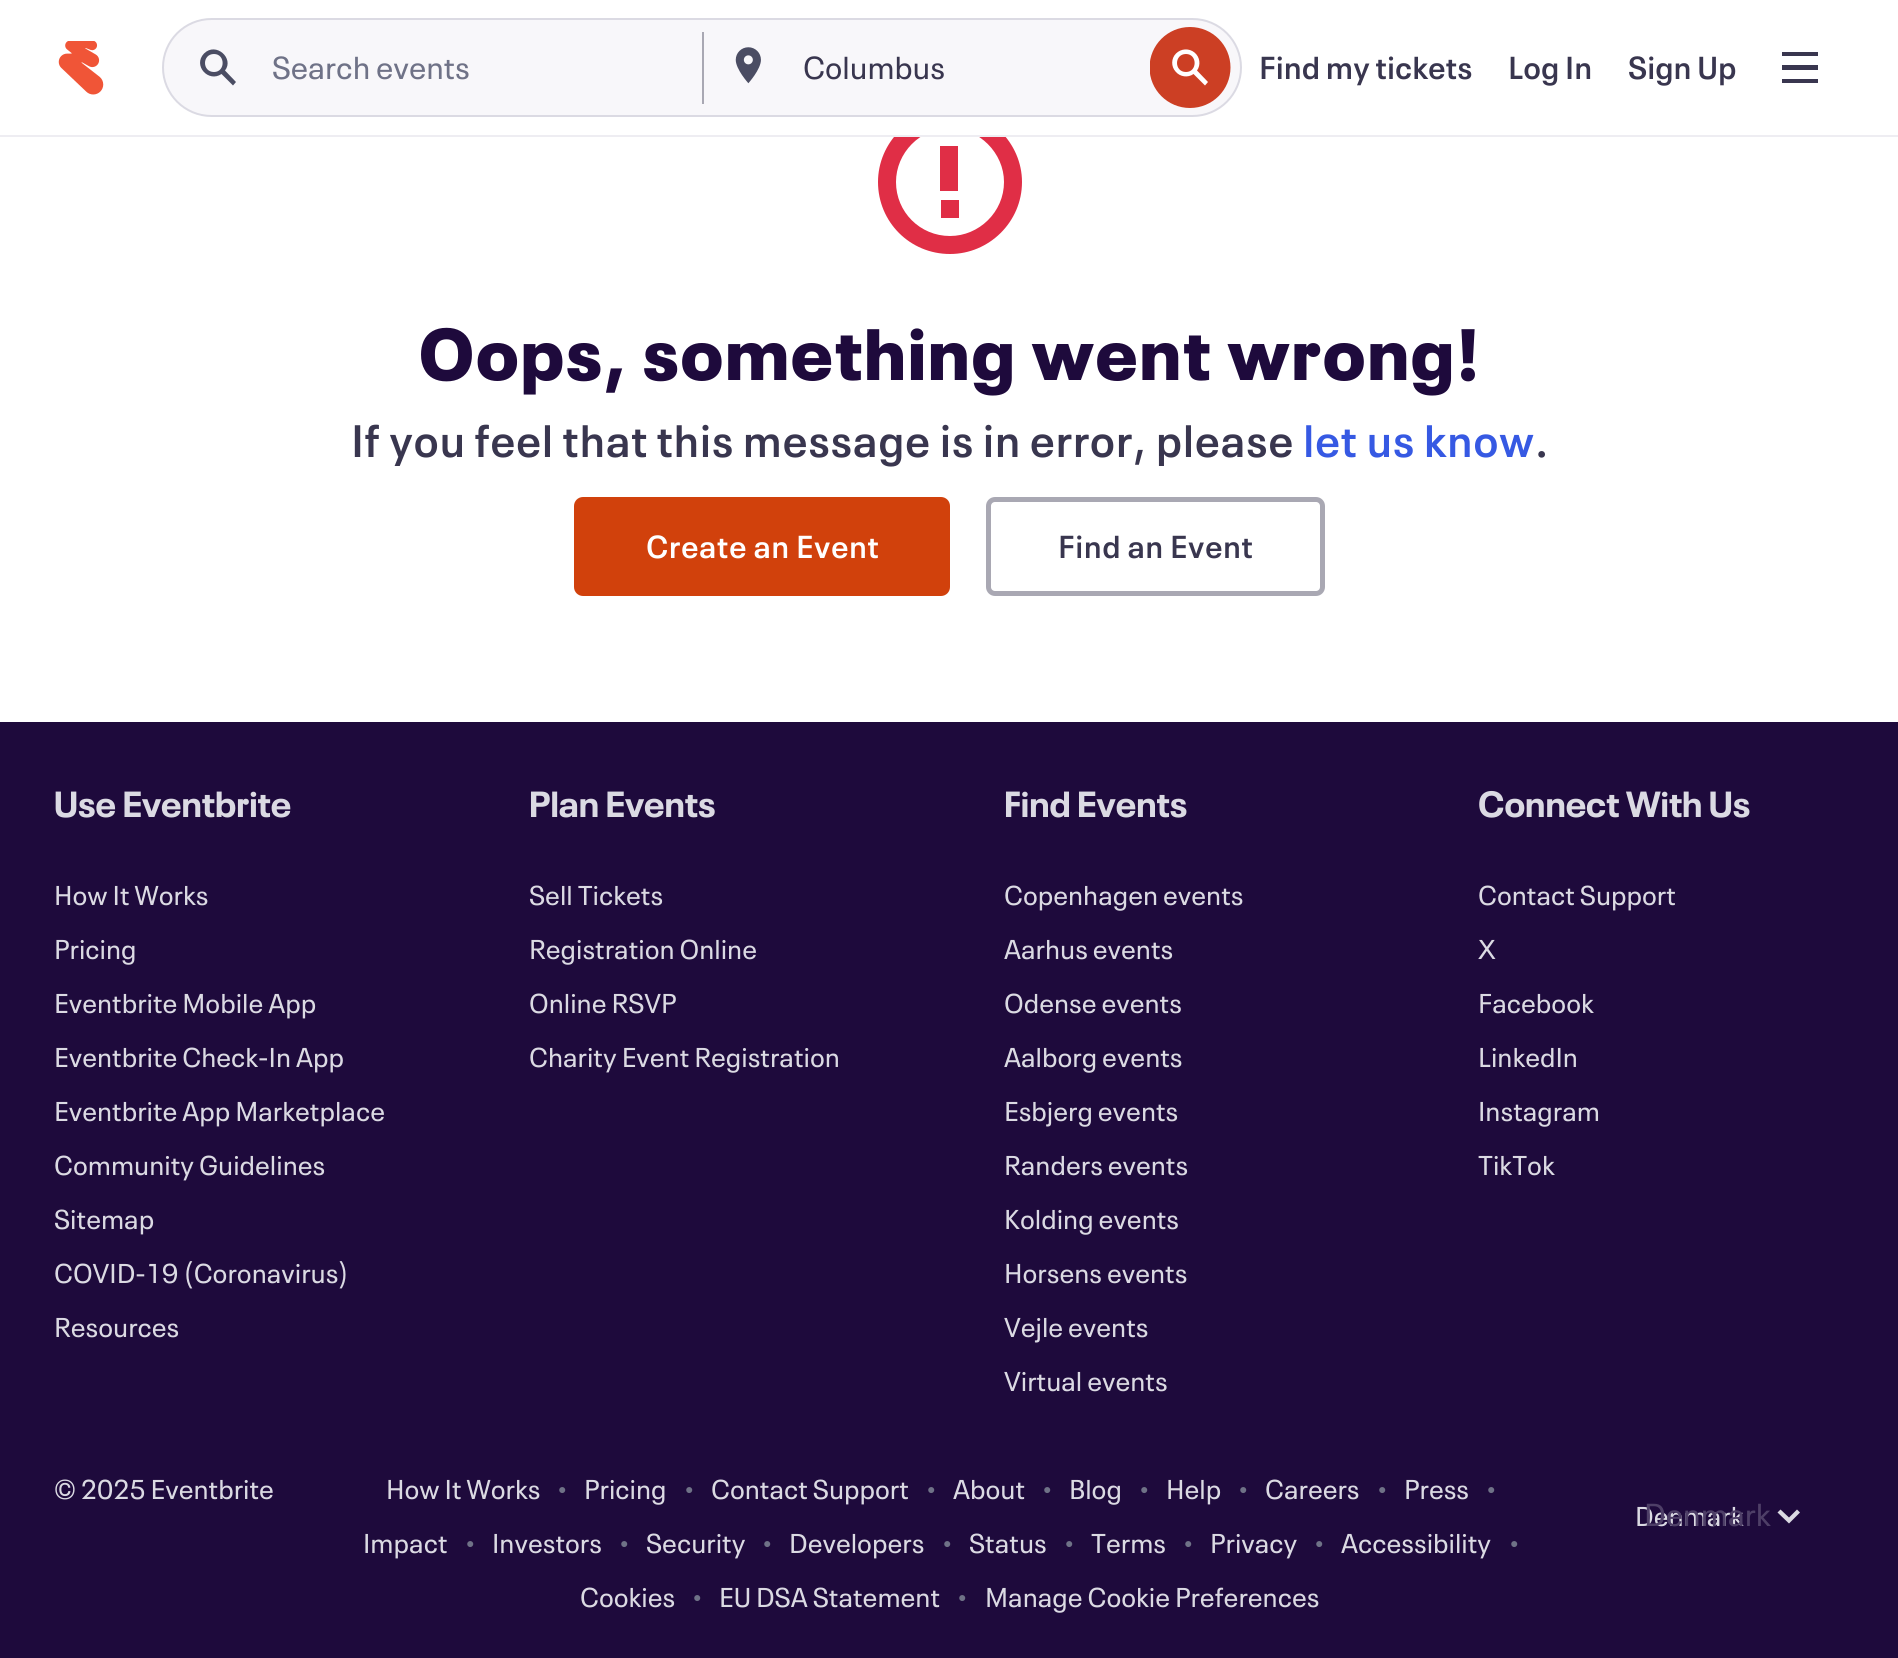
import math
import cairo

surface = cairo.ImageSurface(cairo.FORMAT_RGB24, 1898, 1658)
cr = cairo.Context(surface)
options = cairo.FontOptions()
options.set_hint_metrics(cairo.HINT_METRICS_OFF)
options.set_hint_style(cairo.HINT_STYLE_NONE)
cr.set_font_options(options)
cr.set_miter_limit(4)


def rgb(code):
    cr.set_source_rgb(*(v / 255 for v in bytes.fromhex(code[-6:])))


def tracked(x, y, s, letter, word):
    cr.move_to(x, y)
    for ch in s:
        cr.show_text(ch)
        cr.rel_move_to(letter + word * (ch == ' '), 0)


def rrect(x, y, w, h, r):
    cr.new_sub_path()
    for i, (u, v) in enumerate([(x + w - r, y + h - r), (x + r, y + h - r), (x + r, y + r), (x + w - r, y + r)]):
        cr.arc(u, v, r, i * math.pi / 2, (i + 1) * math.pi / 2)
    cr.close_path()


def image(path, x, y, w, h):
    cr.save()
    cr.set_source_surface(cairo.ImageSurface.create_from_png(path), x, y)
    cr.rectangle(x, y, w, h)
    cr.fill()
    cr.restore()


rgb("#ffffff")
cr.paint()
rgb("#eeedf2")
cr.rectangle(0, 135, 1898, 2)
cr.fill()
image("img/1.png", 58, 41, 46, 54)
rgb("#f8f7fa")
rrect(163, 19, 1078, 97, 48.5)
cr.fill_preserve()
rgb("#dbdae3")
cr.stroke()
rgb("#4b4d63")
cr.set_fill_rule(cairo.FILL_RULE_EVEN_ODD)
cr.new_path()
cr.move_to(214, 72)
cr.curve_to(225.5, 72, 225.5, 54, 214, 54)
cr.curve_to(202, 54, 202, 72, 214, 72)
cr.close_path()
cr.move_to(221.5, 74)
cr.curve_to(208.5, 83, 192.5, 65.5, 204, 53.5)
cr.curve_to(216, 41.5, 234.5, 58.5, 225, 70.5)
cr.line_to(236, 82)
cr.line_to(233, 85.5)
cr.close_path()
cr.fill()
rgb("#a9a8b3")
cr.rectangle(702, 32, 2, 72)
cr.fill()
image("img/2.png", 735, 47, 26, 37)
cr.save()
cr.set_fill_rule(cairo.FILL_RULE_WINDING)
cr.rectangle(1150, 27, 81, 81)
cr.clip()
rgb("#cc3f24")
cr.arc(1190, 67.5, 40.5, 0, 2 * math.pi)
cr.fill()
cr.restore()
rgb("#ffffff")
cr.new_path()
cr.move_to(1197, 70.5)
cr.curve_to(1201, 65, 1200, 57, 1194.5, 52.5)
cr.curve_to(1189, 48, 1181, 48.5, 1176, 53.5)
cr.curve_to(1171, 58.5, 1171, 66.5, 1175.5, 71.5)
cr.curve_to(1180, 77, 1188, 78, 1193.5, 74)
cr.line_to(1205, 85.5)
cr.line_to(1208, 82)
cr.close_path()
cr.move_to(1186, 72)
cr.curve_to(1197.5, 72, 1197.5, 54, 1186, 54)
cr.curve_to(1174, 54, 1174, 72, 1186, 72)
cr.close_path()
cr.fill()
rgb("#39364f")
cr.set_fill_rule(cairo.FILL_RULE_WINDING)
cr.new_path()
cr.move_to(1818, 52)
cr.line_to(1782, 52)
cr.line_to(1782, 56)
cr.line_to(1818, 56)
cr.close_path()
cr.move_to(1782, 65)
cr.line_to(1818, 65)
cr.line_to(1818, 70)
cr.line_to(1782, 70)
cr.close_path()
cr.move_to(1782, 79)
cr.line_to(1818, 79)
cr.line_to(1818, 83)
cr.line_to(1782, 83)
cr.close_path()
cr.fill()
cr.save()
cr.rectangle(842, 137, 216, 153)
cr.clip()
rgb("#e02e46")
cr.set_fill_rule(cairo.FILL_RULE_EVEN_ODD)
cr.new_path()
cr.move_to(950, 236)
cr.curve_to(920, 236, 896, 212, 896, 182)
cr.curve_to(896, 153, 920, 128, 950, 128)
cr.curve_to(979, 128, 1004, 153, 1004, 182)
cr.curve_to(1004, 212, 979, 236, 950, 236)
cr.close_path()
cr.move_to(950, 110)
cr.curve_to(910, 110, 878, 143, 878, 182)
cr.curve_to(878, 222, 910, 254, 950, 254)
cr.curve_to(989, 254, 1022, 222, 1022, 182)
cr.curve_to(1022, 143, 989, 110, 950, 110)
cr.close_path()
cr.fill()
cr.restore()
rgb("#e02e46")
cr.rectangle(940, 146, 18, 45)
cr.fill()
cr.rectangle(941, 200, 18, 18)
cr.fill()
rgb("#d1410c")
rrect(576.5, 499.5, 371, 94, 6.5)
cr.fill_preserve()
cr.set_line_width(5)
cr.stroke()
rrect(988.5, 499.5, 334, 94, 6.5)
rgb("#a9a8b3")
cr.stroke()
rgb("#1e0a3c")
cr.rectangle(0, 722, 1898, 936)
cr.fill()
rgb("#dbdae3")
cr.set_fill_rule(cairo.FILL_RULE_EVEN_ODD)
cr.new_path()
cr.move_to(1777.5, 1512.5)
cr.line_to(1789, 1523.5)
cr.line_to(1800, 1512.5)
cr.line_to(1797, 1509.5)
cr.line_to(1789, 1517.5)
cr.line_to(1780.5, 1509.5)
cr.close_path()
cr.fill()
cr.select_font_face("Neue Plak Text")
cr.set_font_size(31.5)
rgb("#6f7287")
cr.move_to(272, 79)
cr.show_text("Search events")
rgb("#39364f")
cr.move_to(803, 79)
cr.show_text("Columbus")
cr.select_font_face("Neue Plak Text SemiBold")
for x, y, s in [
    (1259, 79, "Find my tickets"),
    (1508, 79, "Log In"),
    (1628, 79, "Sign Up"),
]:
    cr.move_to(x, y)
    cr.show_text(s)
cr.select_font_face("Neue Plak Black")
cr.set_font_size(72)
rgb("#1e0a3c")
tracked(419, 380, "Oops, something went wrong!", 2.25, 0)
cr.select_font_face("Neue Plak Text SemiBold")
cr.set_font_size(45)
rgb("#39364f")
tracked(351, 457, "If you feel that this message is in error, please", 0.55, 0)
rgb("#3659e3")
tracked(1303, 457, "let us know", 0.55, 0)
rgb("#39364f")
tracked(1535, 457, ".", 0.55, 0)
cr.set_font_size(31.5)
rgb("#ffffff")
tracked(646, 558, "Create an Event", 0.5, 0)
rgb("#39364f")
tracked(1058, 558, "Find an Event", 0.5, 0)
cr.select_font_face("Neue Plak", cairo.FONT_SLANT_NORMAL, cairo.FONT_WEIGHT_BOLD)
cr.set_font_size(36)
rgb("#dbdae3")
cr.move_to(54, 817)
cr.show_text("Use Eventbrite")
cr.select_font_face("Neue Plak Text")
cr.set_font_size(27)
for x, y, s in [
    (54, 905, "How It Works"),
    (54, 959, "Pricing"),
    (54, 1013, "Eventbrite Mobile App"),
    (54, 1067, "Eventbrite Check-In App"),
    (54, 1121, "Eventbrite App Marketplace"),
    (54, 1175, "Community Guidelines"),
    (54, 1229, "Sitemap"),
    (54, 1283, "COVID-19 (Coronavirus)"),
    (54, 1337, "Resources"),
]:
    cr.move_to(x, y)
    cr.show_text(s)
cr.select_font_face("Neue Plak", cairo.FONT_SLANT_NORMAL, cairo.FONT_WEIGHT_BOLD)
cr.set_font_size(36)
cr.move_to(529, 817)
cr.show_text("Plan Events")
cr.select_font_face("Neue Plak Text")
cr.set_font_size(27)
for x, y, s in [
    (529, 905, "Sell Tickets"),
    (529, 959, "Registration Online"),
    (529, 1013, "Online RSVP"),
    (529, 1067, "Charity Event Registration"),
]:
    cr.move_to(x, y)
    cr.show_text(s)
cr.select_font_face("Neue Plak", cairo.FONT_SLANT_NORMAL, cairo.FONT_WEIGHT_BOLD)
cr.set_font_size(36)
cr.move_to(1004, 817)
cr.show_text("Find Events")
cr.select_font_face("Neue Plak Text")
cr.set_font_size(27)
for x, y, s in [
    (1004, 905, "Copenhagen events"),
    (1004, 959, "Aarhus events"),
    (1004, 1013, "Odense events"),
    (1004, 1067, "Aalborg events"),
    (1004, 1121, "Esbjerg events"),
    (1004, 1175, "Randers events"),
    (1004, 1229, "Kolding events"),
    (1004, 1283, "Horsens events"),
    (1004, 1337, "Vejle events"),
    (1004, 1391, "Virtual events"),
]:
    cr.move_to(x, y)
    cr.show_text(s)
cr.select_font_face("Neue Plak", cairo.FONT_SLANT_NORMAL, cairo.FONT_WEIGHT_BOLD)
cr.set_font_size(36)
cr.move_to(1478, 817)
cr.show_text("Connect With Us")
cr.select_font_face("Neue Plak Text")
cr.set_font_size(27)
for x, y, s in [
    (1478, 905, "Contact Support"),
    (1478, 959, "X"),
    (1478, 1013, "Facebook"),
    (1478, 1067, "LinkedIn"),
    (1478, 1121, "Instagram"),
    (1478, 1175, "TikTok"),
    (54, 1499, "© 2025 Eventbrite"),
    (386, 1499, "How It Works"),
]:
    cr.move_to(x, y)
    cr.show_text(s)
cr.select_font_face("Liberation Sans")
cr.set_font_size(14)
rgb("#6f7287")
cr.move_to(558, 1494)
cr.show_text("●")
cr.select_font_face("Neue Plak Text")
cr.set_font_size(27)
rgb("#dbdae3")
cr.move_to(584, 1499)
cr.show_text("Pricing")
cr.select_font_face("Liberation Sans")
cr.set_font_size(14)
rgb("#6f7287")
cr.move_to(685, 1494)
cr.show_text("●")
cr.select_font_face("Neue Plak Text")
cr.set_font_size(27)
rgb("#dbdae3")
cr.move_to(711, 1499)
cr.show_text("Contact Support")
cr.select_font_face("Liberation Sans")
cr.set_font_size(14)
rgb("#6f7287")
cr.move_to(927, 1494)
cr.show_text("●")
cr.select_font_face("Neue Plak Text")
cr.set_font_size(27)
rgb("#dbdae3")
cr.move_to(953, 1499)
cr.show_text("About")
cr.select_font_face("Liberation Sans")
cr.set_font_size(14)
rgb("#6f7287")
cr.move_to(1043, 1494)
cr.show_text("●")
cr.select_font_face("Neue Plak Text")
cr.set_font_size(27)
rgb("#dbdae3")
cr.move_to(1069, 1499)
cr.show_text("Blog")
cr.select_font_face("Liberation Sans")
cr.set_font_size(14)
rgb("#6f7287")
cr.move_to(1140, 1494)
cr.show_text("●")
cr.select_font_face("Neue Plak Text")
cr.set_font_size(27)
rgb("#dbdae3")
cr.move_to(1166, 1499)
cr.show_text("Help")
cr.select_font_face("Liberation Sans")
cr.set_font_size(14)
rgb("#6f7287")
cr.move_to(1239, 1494)
cr.show_text("●")
cr.select_font_face("Neue Plak Text")
cr.set_font_size(27)
rgb("#dbdae3")
cr.move_to(1265, 1499)
cr.show_text("Careers")
cr.select_font_face("Liberation Sans")
cr.set_font_size(14)
rgb("#6f7287")
cr.move_to(1378, 1494)
cr.show_text("●")
cr.select_font_face("Neue Plak Text")
cr.set_font_size(27)
rgb("#dbdae3")
cr.move_to(1404, 1499)
cr.show_text("Press")
cr.select_font_face("Liberation Sans")
cr.set_font_size(14)
rgb("#6f7287")
cr.move_to(1487, 1494)
cr.show_text("●")
cr.select_font_face("Neue Plak Text")
cr.set_font_size(27)
rgb("#dbdae3")
cr.move_to(363, 1553)
cr.show_text("Impact")
cr.select_font_face("Liberation Sans")
cr.set_font_size(14)
rgb("#6f7287")
cr.move_to(466, 1548)
cr.show_text("●")
cr.select_font_face("Neue Plak Text")
cr.set_font_size(27)
rgb("#dbdae3")
cr.move_to(492, 1553)
cr.show_text("Investors")
cr.select_font_face("Liberation Sans")
cr.set_font_size(14)
rgb("#6f7287")
cr.move_to(620, 1548)
cr.show_text("●")
cr.select_font_face("Neue Plak Text")
cr.set_font_size(27)
rgb("#dbdae3")
cr.move_to(646, 1553)
cr.show_text("Security")
cr.select_font_face("Liberation Sans")
cr.set_font_size(14)
rgb("#6f7287")
cr.move_to(763, 1548)
cr.show_text("●")
cr.select_font_face("Neue Plak Text")
cr.set_font_size(27)
rgb("#dbdae3")
cr.move_to(789, 1553)
cr.show_text("Developers")
cr.select_font_face("Liberation Sans")
cr.set_font_size(14)
rgb("#6f7287")
cr.move_to(943, 1548)
cr.show_text("●")
cr.select_font_face("Neue Plak Text")
cr.set_font_size(27)
rgb("#dbdae3")
cr.move_to(969, 1553)
cr.show_text("Status")
cr.select_font_face("Liberation Sans")
cr.set_font_size(14)
rgb("#6f7287")
cr.move_to(1065, 1548)
cr.show_text("●")
cr.select_font_face("Neue Plak Text")
cr.set_font_size(27)
rgb("#dbdae3")
cr.move_to(1091, 1553)
cr.show_text("Terms")
cr.select_font_face("Liberation Sans")
cr.set_font_size(14)
rgb("#6f7287")
cr.move_to(1184, 1548)
cr.show_text("●")
cr.select_font_face("Neue Plak Text")
cr.set_font_size(27)
rgb("#dbdae3")
cr.move_to(1210, 1553)
cr.show_text("Privacy")
cr.select_font_face("Liberation Sans")
cr.set_font_size(14)
rgb("#6f7287")
cr.move_to(1315, 1548)
cr.show_text("●")
cr.select_font_face("Neue Plak Text")
cr.set_font_size(27)
rgb("#dbdae3")
cr.move_to(1341, 1553)
cr.show_text("Accessibility")
cr.select_font_face("Liberation Sans")
cr.set_font_size(14)
rgb("#6f7287")
cr.move_to(1510, 1548)
cr.show_text("●")
cr.select_font_face("Neue Plak Text")
cr.set_font_size(27)
rgb("#dbdae3")
cr.move_to(580, 1607)
cr.show_text("Cookies")
cr.select_font_face("Liberation Sans")
cr.set_font_size(14)
rgb("#6f7287")
cr.move_to(693, 1602)
cr.show_text("●")
cr.select_font_face("Neue Plak Text")
cr.set_font_size(27)
rgb("#dbdae3")
cr.move_to(719, 1607)
cr.show_text("EU DSA Statement")
cr.select_font_face("Liberation Sans")
cr.set_font_size(14)
rgb("#6f7287")
cr.move_to(958, 1602)
cr.show_text("●")
cr.select_font_face("Neue Plak Text")
cr.set_font_size(27)
rgb("#dbdae3")
cr.move_to(985, 1607)
cr.show_text("Manage Cookie Preferences")
cr.move_to(1635, 1526)
cr.show_text("Denmark")
cr.set_font_size(31.5)
rgb("#4e3f67")
cr.move_to(1644, 1526)
cr.show_text("Denmark")
surface.write_to_png("page.png")
